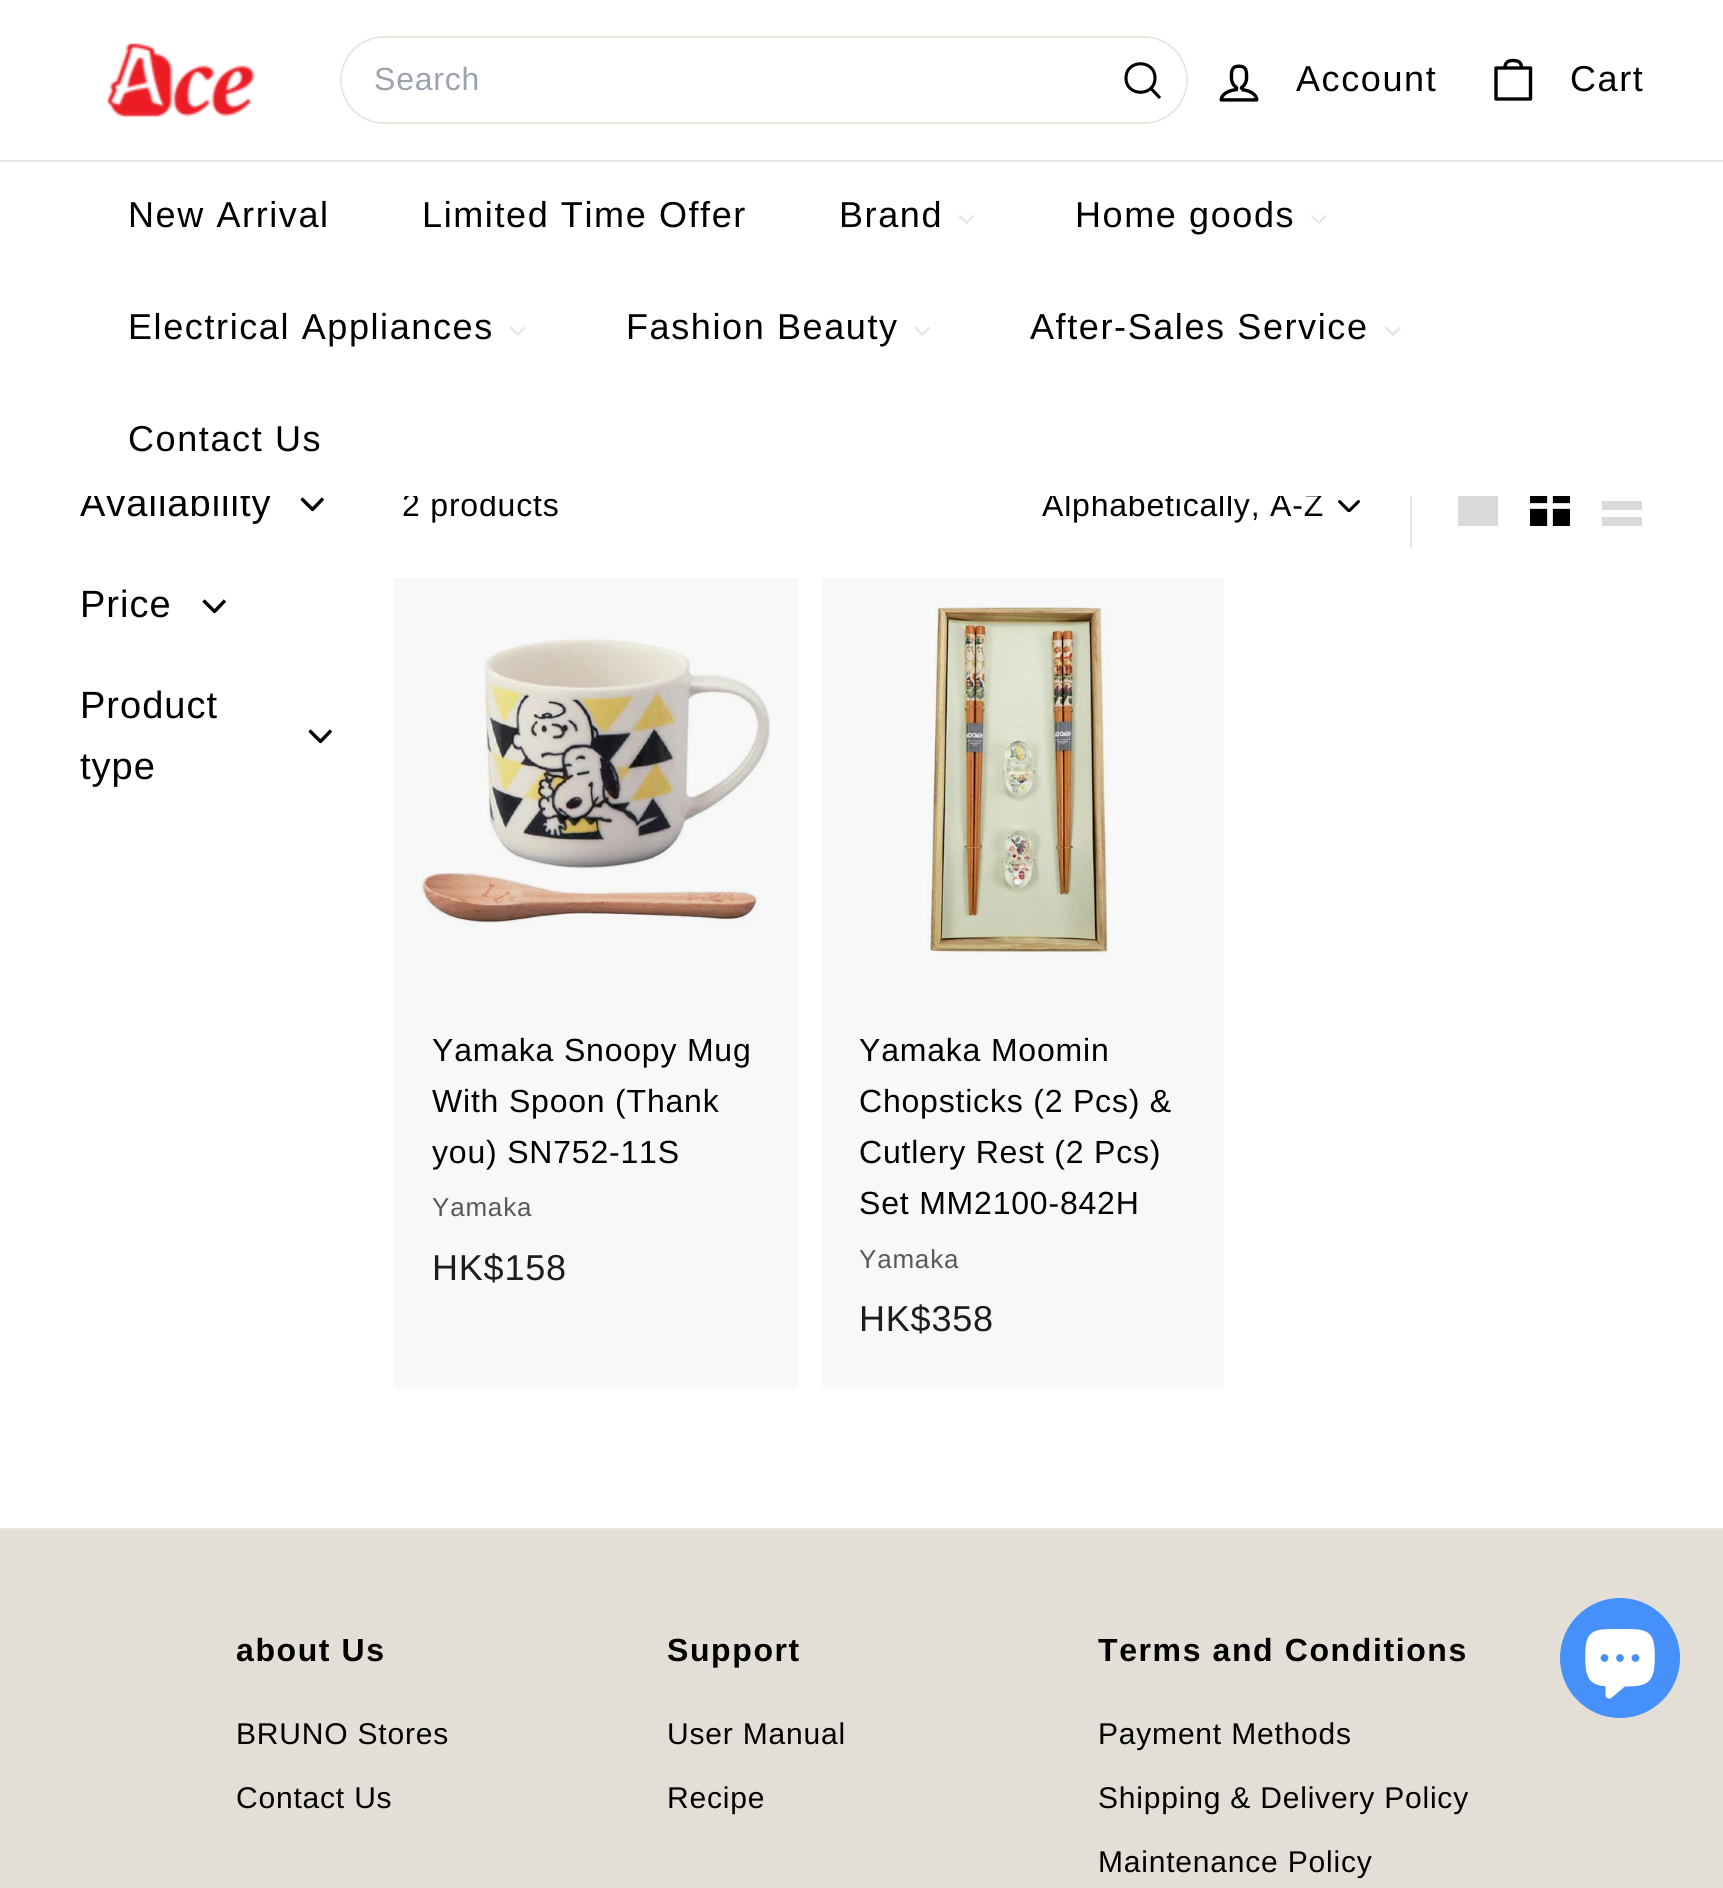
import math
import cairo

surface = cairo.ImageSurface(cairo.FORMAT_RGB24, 1723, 1888)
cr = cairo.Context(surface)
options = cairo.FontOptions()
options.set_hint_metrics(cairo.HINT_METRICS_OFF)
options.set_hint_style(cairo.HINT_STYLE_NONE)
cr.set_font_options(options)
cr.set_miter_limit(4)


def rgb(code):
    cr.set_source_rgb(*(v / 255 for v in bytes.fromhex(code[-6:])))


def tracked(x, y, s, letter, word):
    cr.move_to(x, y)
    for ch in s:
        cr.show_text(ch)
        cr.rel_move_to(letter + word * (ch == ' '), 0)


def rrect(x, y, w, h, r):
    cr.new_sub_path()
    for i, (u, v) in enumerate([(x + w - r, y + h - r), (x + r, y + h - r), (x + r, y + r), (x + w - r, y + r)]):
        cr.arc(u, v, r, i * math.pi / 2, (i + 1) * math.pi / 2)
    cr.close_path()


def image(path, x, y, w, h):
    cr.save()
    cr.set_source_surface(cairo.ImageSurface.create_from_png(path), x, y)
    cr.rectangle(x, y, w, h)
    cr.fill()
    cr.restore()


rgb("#ffffff")
cr.paint()
image("img/1.png", 107, 42, 148, 76)
rrect(341, 37, 846, 86, 43)
rgb("#e8e8e1")
cr.stroke()
cr.new_path()
cr.move_to(1155, 78)
cr.curve_to(1155, 97, 1126, 97, 1126, 78)
cr.curve_to(1126, 59, 1155, 59, 1155, 78)
cr.move_to(1160, 98)
cr.line_to(1151, 88.5)
rgb("#000000")
cr.set_line_width(3.1)
cr.set_line_join(cairo.LINE_JOIN_ROUND)
cr.stroke()
image("img/2.png", 1219, 64, 40, 38)
cr.new_path()
cr.move_to(1505, 68)
cr.curve_to(1505, 62, 1508.5, 60.5, 1513, 60.5)
cr.curve_to(1518, 60.5, 1521.5, 62, 1521.5, 68)
cr.move_to(1496, 68)
cr.line_to(1530.5, 68)
cr.line_to(1530.5, 99)
cr.line_to(1496, 99)
cr.close_path()
cr.set_line_width(3.4)
cr.stroke()
rgb("#e6e6e6")
cr.rectangle(0, 160, 1723, 2)
cr.fill()
rgb("#e5e7eb")
cr.new_path()
cr.move_to(973, 214.5)
cr.line_to(974.5, 216.5)
cr.line_to(967, 224)
cr.line_to(965.5, 222.5)
cr.close_path()
cr.fill()
cr.new_path()
cr.move_to(960, 214.5)
cr.line_to(968, 222.5)
cr.line_to(966, 224)
cr.line_to(958, 216)
cr.close_path()
cr.fill()
cr.new_path()
cr.move_to(1325, 214.5)
cr.line_to(1327, 216.5)
cr.line_to(1319, 224)
cr.line_to(1317.5, 222.5)
cr.close_path()
cr.fill()
cr.new_path()
cr.move_to(1312, 214.5)
cr.line_to(1320, 222.5)
cr.line_to(1318.5, 224)
cr.line_to(1310.5, 216)
cr.close_path()
cr.fill()
cr.new_path()
cr.move_to(524, 326.5)
cr.line_to(526, 328.5)
cr.line_to(518, 336)
cr.line_to(516.5, 334)
cr.close_path()
cr.fill()
cr.new_path()
cr.move_to(511, 326)
cr.line_to(519, 334)
cr.line_to(517.5, 336)
cr.line_to(509.5, 328)
cr.close_path()
cr.fill()
cr.new_path()
cr.move_to(928.5, 326.5)
cr.line_to(930.5, 328.5)
cr.line_to(923, 336)
cr.line_to(921, 334)
cr.close_path()
cr.fill()
cr.new_path()
cr.move_to(915.5, 326)
cr.line_to(923.5, 334)
cr.line_to(922, 336)
cr.line_to(914, 328)
cr.close_path()
cr.fill()
cr.new_path()
cr.move_to(1399, 326.5)
cr.line_to(1401, 328.5)
cr.line_to(1393.5, 336)
cr.line_to(1391.5, 334)
cr.close_path()
cr.fill()
cr.new_path()
cr.move_to(1386, 326)
cr.line_to(1394, 334)
cr.line_to(1392.5, 336)
cr.line_to(1384.5, 328)
cr.close_path()
cr.fill()
cr.new_path()
cr.move_to(301.5, 498.5)
cr.line_to(312.5, 509.5)
cr.line_to(323, 498.5)
rgb("#000000")
cr.stroke()
cr.new_path()
cr.move_to(203.5, 600.5)
cr.line_to(214.5, 611.5)
cr.line_to(225, 600.5)
cr.stroke()
cr.new_path()
cr.move_to(309.5, 730.5)
cr.line_to(320.5, 741.5)
cr.line_to(331, 730.5)
cr.stroke()
rgb("#e8e8e1")
cr.rectangle(1410, 496, 2, 52)
cr.fill()
image("img/3.png", 1338, 500, 22, 12)
rgb("#d9d9d9")
cr.rectangle(1458, 496, 40, 30)
cr.fill()
image("img/4.png", 1530, 496, 40, 30)
cr.new_path()
cr.move_to(1602, 486)
cr.line_to(1642, 486)
cr.line_to(1642, 495)
cr.line_to(1602, 495)
cr.close_path()
cr.move_to(1602, 501)
cr.line_to(1642, 501)
cr.line_to(1642, 510)
cr.line_to(1602, 510)
cr.close_path()
cr.move_to(1602, 517)
cr.line_to(1642, 517)
cr.line_to(1642, 526)
cr.line_to(1602, 526)
cr.close_path()
cr.fill()
image("img/5.png", 420, 635, 350, 291)
cr.set_source_rgba(0, 0, 0, 0.03)
cr.rectangle(394, 578, 404, 810)
cr.fill()
image("img/6.png", 926, 606, 183, 351)
cr.rectangle(822, 578, 402, 810)
cr.fill()
rgb("#e3dfd7")
cr.rectangle(0, 1530, 1723, 358)
cr.fill()
rgb("#e8e8e1")
cr.rectangle(0, 1528, 1723, 2)
cr.fill()
rgb("#4691f9")
cr.arc(1620, 1658, 60, 0, 2 * math.pi)
cr.fill()
image("img/7.png", 1585, 1629, 70, 70)
cr.select_font_face("Liberation Sans")
cr.set_font_size(32)
rgb("#9ca3af")
tracked(374, 90, "Search", 0.8, 0)
cr.set_font_size(36)
rgb("#000000")
for x, y, s in [
    (1296, 91, "Account"),
    (1570, 91, "Cart"),
    (128, 227, "New Arrival"),
    (422, 227, "Limited Time Offer"),
    (839, 227, "Brand"),
    (1075, 227, "Home goods"),
    (128, 339, "Electrical Appliances"),
    (626, 339, "Fashion Beauty"),
    (1030, 339, "After-Sales Service"),
    (128, 451, "Contact Us"),
]:
    tracked(x, y, s, 1.6, 0)
cr.set_font_size(38)
for x, y, s in [
    (80, 516, "Availability"),
    (80, 617, "Price"),
    (80, 718, "Product"),
    (80, 779, "type"),
]:
    tracked(x, y, s, 1, 0)
cr.set_font_size(32)
tracked(402, 516, "2 products", 0.8, 0)
tracked(1042, 516, "Alphabetically, A-Z", 0.8, 0)
rgb("#ffffff")
cr.rectangle(88, 486, 1554, 10)
cr.fill()
rgb("#000000")
for x, y, s in [
    (432, 1061, "Yamaka Snoopy Mug"),
    (432, 1112, "With Spoon (Thank"),
    (432, 1163, "you) SN752-11S"),
]:
    tracked(x, y, s, 0.8, 0)
cr.set_font_size(26)
rgb("#595959")
tracked(432, 1216, "Yamaka", 0.8, 0)
cr.set_font_size(36)
rgb("#1c1d1d")
tracked(432, 1280, "HK$158", 0.8, 0)
cr.set_font_size(32)
rgb("#000000")
for x, y, s in [
    (859, 1061, "Yamaka Moomin"),
    (859, 1112, "Chopsticks (2 Pcs) &"),
    (859, 1163, "Cutlery Rest (2 Pcs)"),
    (859, 1214, "Set MM2100-842H"),
]:
    tracked(x, y, s, 0.8, 0)
cr.set_font_size(26)
rgb("#595959")
tracked(859, 1268, "Yamaka", 0.8, 0)
cr.set_font_size(36)
rgb("#1c1d1d")
tracked(859, 1331, "HK$358", 0.8, 0)
cr.select_font_face("Liberation Sans", cairo.FONT_SLANT_NORMAL, cairo.FONT_WEIGHT_BOLD)
cr.set_font_size(32)
rgb("#000000")
tracked(236, 1661, "about Us", 1.6, 0)
cr.select_font_face("Liberation Sans")
cr.set_font_size(30)
tracked(236, 1744, "BRUNO Stores", 0.8, 0)
tracked(236, 1808, "Contact Us", 0.8, 0)
cr.select_font_face("Liberation Sans", cairo.FONT_SLANT_NORMAL, cairo.FONT_WEIGHT_BOLD)
cr.set_font_size(32)
tracked(667, 1661, "Support", 1.6, 0)
cr.select_font_face("Liberation Sans")
cr.set_font_size(30)
tracked(667, 1744, "User Manual", 0.8, 0)
tracked(667, 1808, "Recipe", 0.8, 0)
cr.select_font_face("Liberation Sans", cairo.FONT_SLANT_NORMAL, cairo.FONT_WEIGHT_BOLD)
cr.set_font_size(32)
tracked(1098, 1661, "Terms and Conditions", 1.6, 0)
cr.select_font_face("Liberation Sans")
cr.set_font_size(30)
for x, y, s in [
    (1098, 1744, "Payment Methods"),
    (1098, 1808, "Shipping & Delivery Policy"),
    (1098, 1872, "Maintenance Policy"),
]:
    tracked(x, y, s, 0.8, 0)
surface.write_to_png("page.png")
